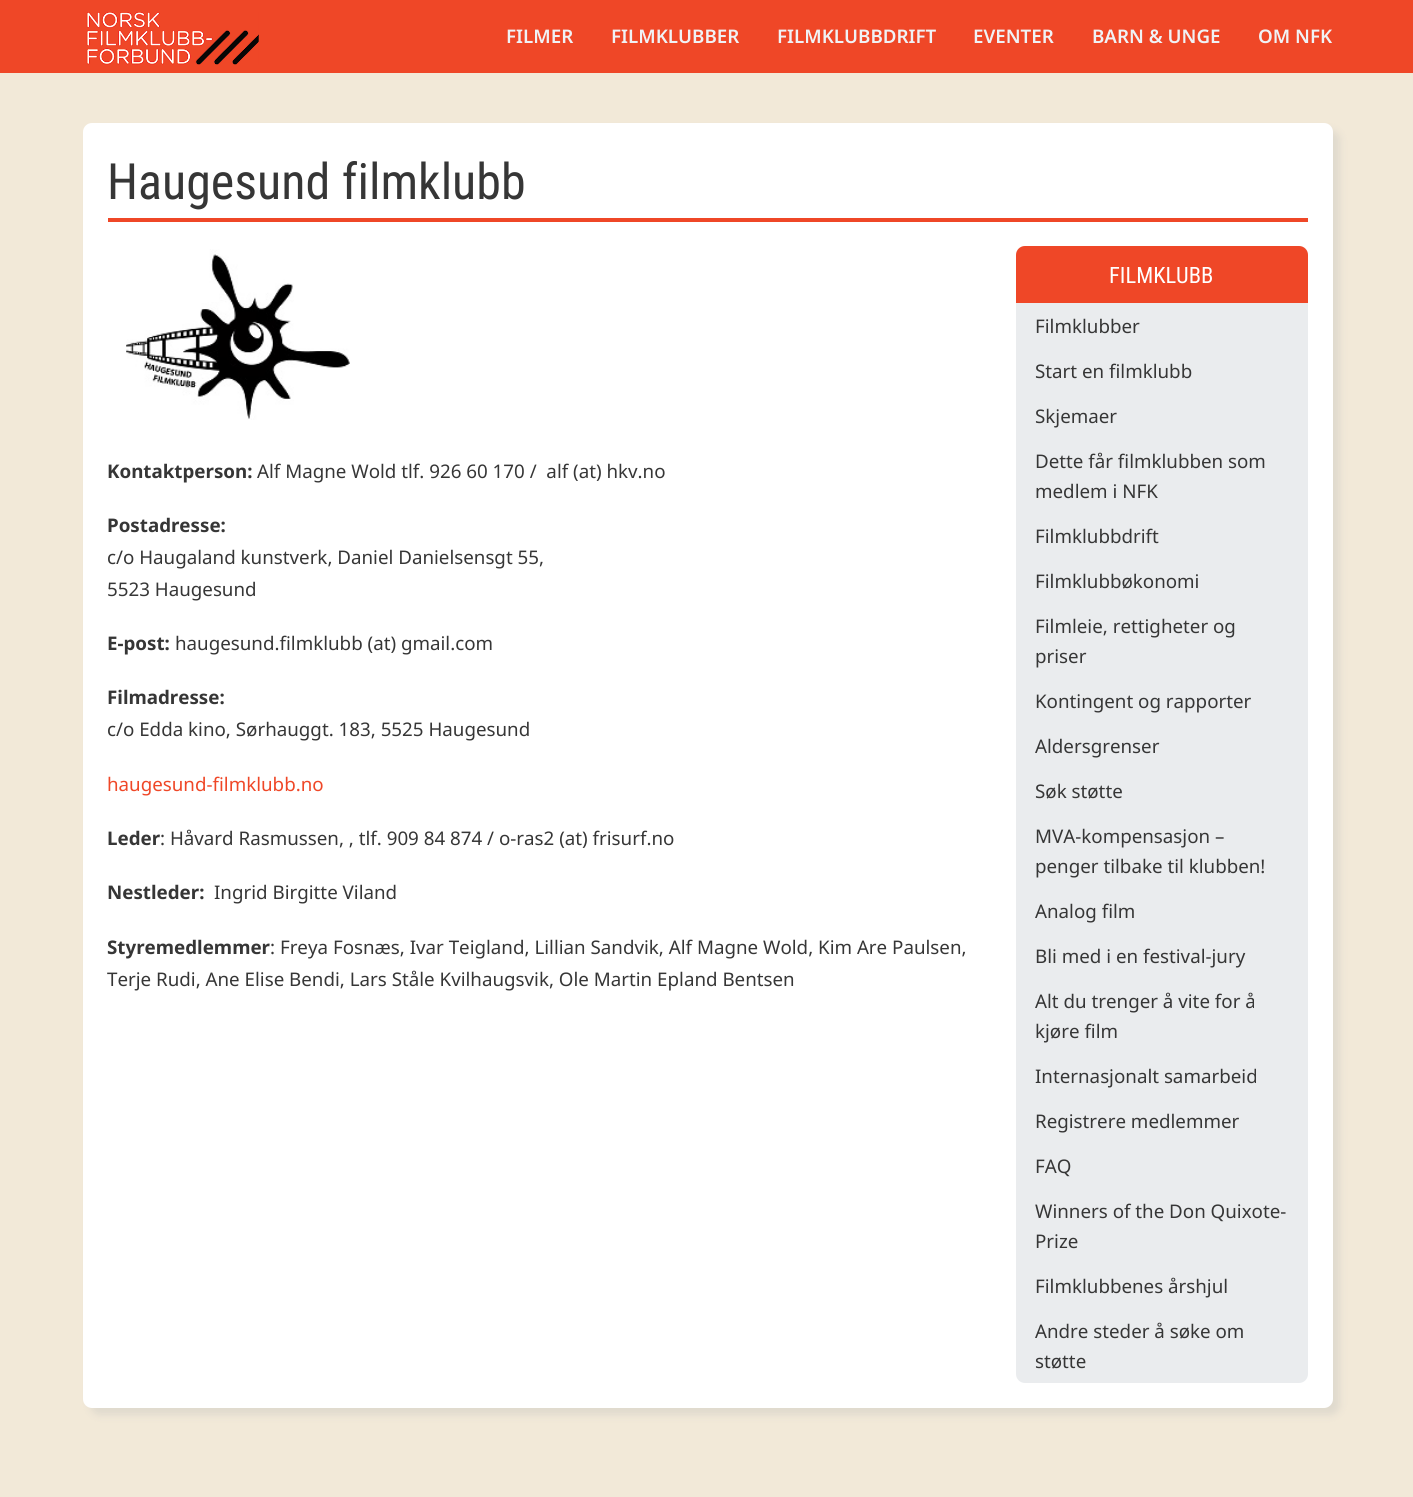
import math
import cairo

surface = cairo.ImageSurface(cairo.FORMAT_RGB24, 1413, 1497)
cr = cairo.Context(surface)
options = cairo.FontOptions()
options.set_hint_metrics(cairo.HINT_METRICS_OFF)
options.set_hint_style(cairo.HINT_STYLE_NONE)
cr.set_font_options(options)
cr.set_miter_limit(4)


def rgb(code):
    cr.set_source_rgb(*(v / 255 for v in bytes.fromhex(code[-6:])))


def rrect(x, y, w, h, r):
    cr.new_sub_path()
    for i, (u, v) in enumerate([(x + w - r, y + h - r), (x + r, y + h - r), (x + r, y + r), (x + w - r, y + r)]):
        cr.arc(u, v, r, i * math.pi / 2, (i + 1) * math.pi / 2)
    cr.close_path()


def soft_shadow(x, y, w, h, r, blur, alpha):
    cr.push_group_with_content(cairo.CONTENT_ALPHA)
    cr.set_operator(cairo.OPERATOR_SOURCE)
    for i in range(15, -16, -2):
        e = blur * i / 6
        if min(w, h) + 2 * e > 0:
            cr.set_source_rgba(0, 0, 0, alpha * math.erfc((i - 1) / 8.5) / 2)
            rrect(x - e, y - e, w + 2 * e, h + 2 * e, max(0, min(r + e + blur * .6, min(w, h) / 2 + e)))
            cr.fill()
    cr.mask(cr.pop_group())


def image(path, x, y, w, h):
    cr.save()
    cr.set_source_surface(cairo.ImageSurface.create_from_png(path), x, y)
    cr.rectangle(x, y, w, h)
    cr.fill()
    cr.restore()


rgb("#f2e9d8")
cr.paint()
rgb("#ef4727")
cr.rectangle(0, 0, 1413, 73)
cr.fill()
image("img/1.png", 86, 12, 173, 53)
rgb("#959da5")
soft_shadow(90, 130, 1250, 1285, 9, 4, 0.2)
rgb("#ffffff")
rrect(83, 123, 1250, 1285, 9)
cr.fill()
rgb("#ef4727")
cr.rectangle(108, 218, 1200, 4)
cr.fill()
image("img/2.png", 126, 249, 224, 171)
rgb("#eaecee")
rrect(1016, 246, 292, 1137, 9)
cr.fill()
rgb("#ef4727")
cr.new_path()
cr.move_to(1025, 246)
cr.line_to(1299, 246)
cr.curve_to(1304, 246, 1308, 250, 1308, 255)
cr.line_to(1308, 303)
cr.line_to(1016, 303)
cr.line_to(1016, 255)
cr.curve_to(1016, 250, 1020, 246, 1025, 246)
cr.close_path()
cr.fill()
cr.select_font_face("Noto Sans SemiBold")
cr.set_font_size(18.75)
rgb("#f0f2f5")
for x, y, s in [
    (506, 43, "FILMER"),
    (611, 43, "FILMKLUBBER"),
    (777, 43, "FILMKLUBBDRIFT"),
    (973, 43, "EVENTER"),
    (1092, 43, "BARN & UNGE"),
    (1258, 43, "OM NFK"),
]:
    cr.move_to(x, y)
    cr.show_text(s)
cr.select_font_face("Roboto Condensed")
cr.set_font_size(50)
rgb("#363636")
cr.move_to(107, 199)
cr.show_text("Haugesund filmklubb")
cr.select_font_face("Noto Sans", cairo.FONT_SLANT_NORMAL, cairo.FONT_WEIGHT_BOLD)
cr.set_font_size(18.75)
cr.move_to(107, 478)
cr.show_text("Kontaktperson:")
cr.select_font_face("Noto Sans")
cr.move_to(257, 478)
cr.show_text("Alf Magne Wold tlf. 926 60 170 /  alf (at) hkv.no")
cr.select_font_face("Noto Sans", cairo.FONT_SLANT_NORMAL, cairo.FONT_WEIGHT_BOLD)
cr.move_to(107, 532)
cr.show_text("Postadresse:")
cr.select_font_face("Noto Sans")
cr.move_to(107, 564)
cr.show_text("c/o Haugaland kunstverk, Daniel Danielsensgt 55,")
cr.move_to(107, 596)
cr.show_text("5523 Haugesund")
cr.select_font_face("Noto Sans", cairo.FONT_SLANT_NORMAL, cairo.FONT_WEIGHT_BOLD)
cr.move_to(107, 650)
cr.show_text("E-post:")
cr.select_font_face("Noto Sans")
cr.move_to(175, 650)
cr.show_text("haugesund.filmklubb (at) gmail.com")
cr.select_font_face("Noto Sans", cairo.FONT_SLANT_NORMAL, cairo.FONT_WEIGHT_BOLD)
cr.move_to(107, 704)
cr.show_text("Filmadresse:")
cr.select_font_face("Noto Sans")
cr.move_to(107, 736)
cr.show_text("c/o Edda kino, Sørhauggt. 183, 5525 Haugesund")
rgb("#ef4727")
cr.move_to(107, 791)
cr.show_text("haugesund-filmklubb.no")
cr.select_font_face("Noto Sans", cairo.FONT_SLANT_NORMAL, cairo.FONT_WEIGHT_BOLD)
rgb("#363636")
cr.move_to(107, 845)
cr.show_text("Leder")
cr.select_font_face("Noto Sans")
cr.move_to(160, 845)
cr.show_text(": Håvard Rasmussen, , tlf. 909 84 874 / o-ras2 (at) frisurf.no")
cr.select_font_face("Noto Sans", cairo.FONT_SLANT_NORMAL, cairo.FONT_WEIGHT_BOLD)
cr.move_to(107, 899)
cr.show_text("Nestleder:")
cr.select_font_face("Noto Sans")
cr.move_to(214, 899)
cr.show_text("Ingrid Birgitte Viland")
cr.select_font_face("Noto Sans", cairo.FONT_SLANT_NORMAL, cairo.FONT_WEIGHT_BOLD)
cr.move_to(107, 954)
cr.show_text("Styremedlemmer")
cr.select_font_face("Noto Sans")
cr.move_to(270, 954)
cr.show_text(": Freya Fosnæs, Ivar Teigland, Lillian Sandvik, Alf Magne Wold, Kim Are Paulsen,")
cr.move_to(107, 986)
cr.show_text("Terje Rudi, Ane Elise Bendi, Lars Ståle Kvilhaugsvik, Ole Martin Epland Bentsen")
cr.select_font_face("Roboto Condensed")
cr.set_font_size(22.5)
rgb("#ffffff")
cr.move_to(1109, 283)
cr.show_text("FILMKLUBB")
cr.select_font_face("Noto Sans")
cr.set_font_size(18.75)
rgb("#363636")
for x, y, s in [
    (1035, 333, "Filmklubber"),
    (1035, 378, "Start en filmklubb"),
    (1035, 423, "Skjemaer"),
    (1035, 468, "Dette får filmklubben som"),
    (1035, 498, "medlem i NFK"),
    (1035, 543, "Filmklubbdrift"),
    (1035, 588, "Filmklubbøkonomi"),
    (1035, 633, "Filmleie, rettigheter og"),
    (1035, 663, "priser"),
    (1035, 708, "Kontingent og rapporter"),
    (1035, 753, "Aldersgrenser"),
    (1035, 798, "Søk støtte"),
    (1035, 843, "MVA-kompensasjon –"),
    (1035, 873, "penger tilbake til klubben!"),
    (1035, 918, "Analog film"),
    (1035, 963, "Bli med i en festival-jury"),
    (1035, 1008, "Alt du trenger å vite for å"),
    (1035, 1038, "kjøre film"),
    (1035, 1083, "Internasjonalt samarbeid"),
    (1035, 1128, "Registrere medlemmer"),
    (1035, 1173, "FAQ"),
    (1035, 1218, "Winners of the Don Quixote-"),
    (1035, 1248, "Prize"),
    (1035, 1293, "Filmklubbenes årshjul"),
    (1035, 1338, "Andre steder å søke om"),
    (1035, 1368, "støtte"),
]:
    cr.move_to(x, y)
    cr.show_text(s)
surface.write_to_png("page.png")
